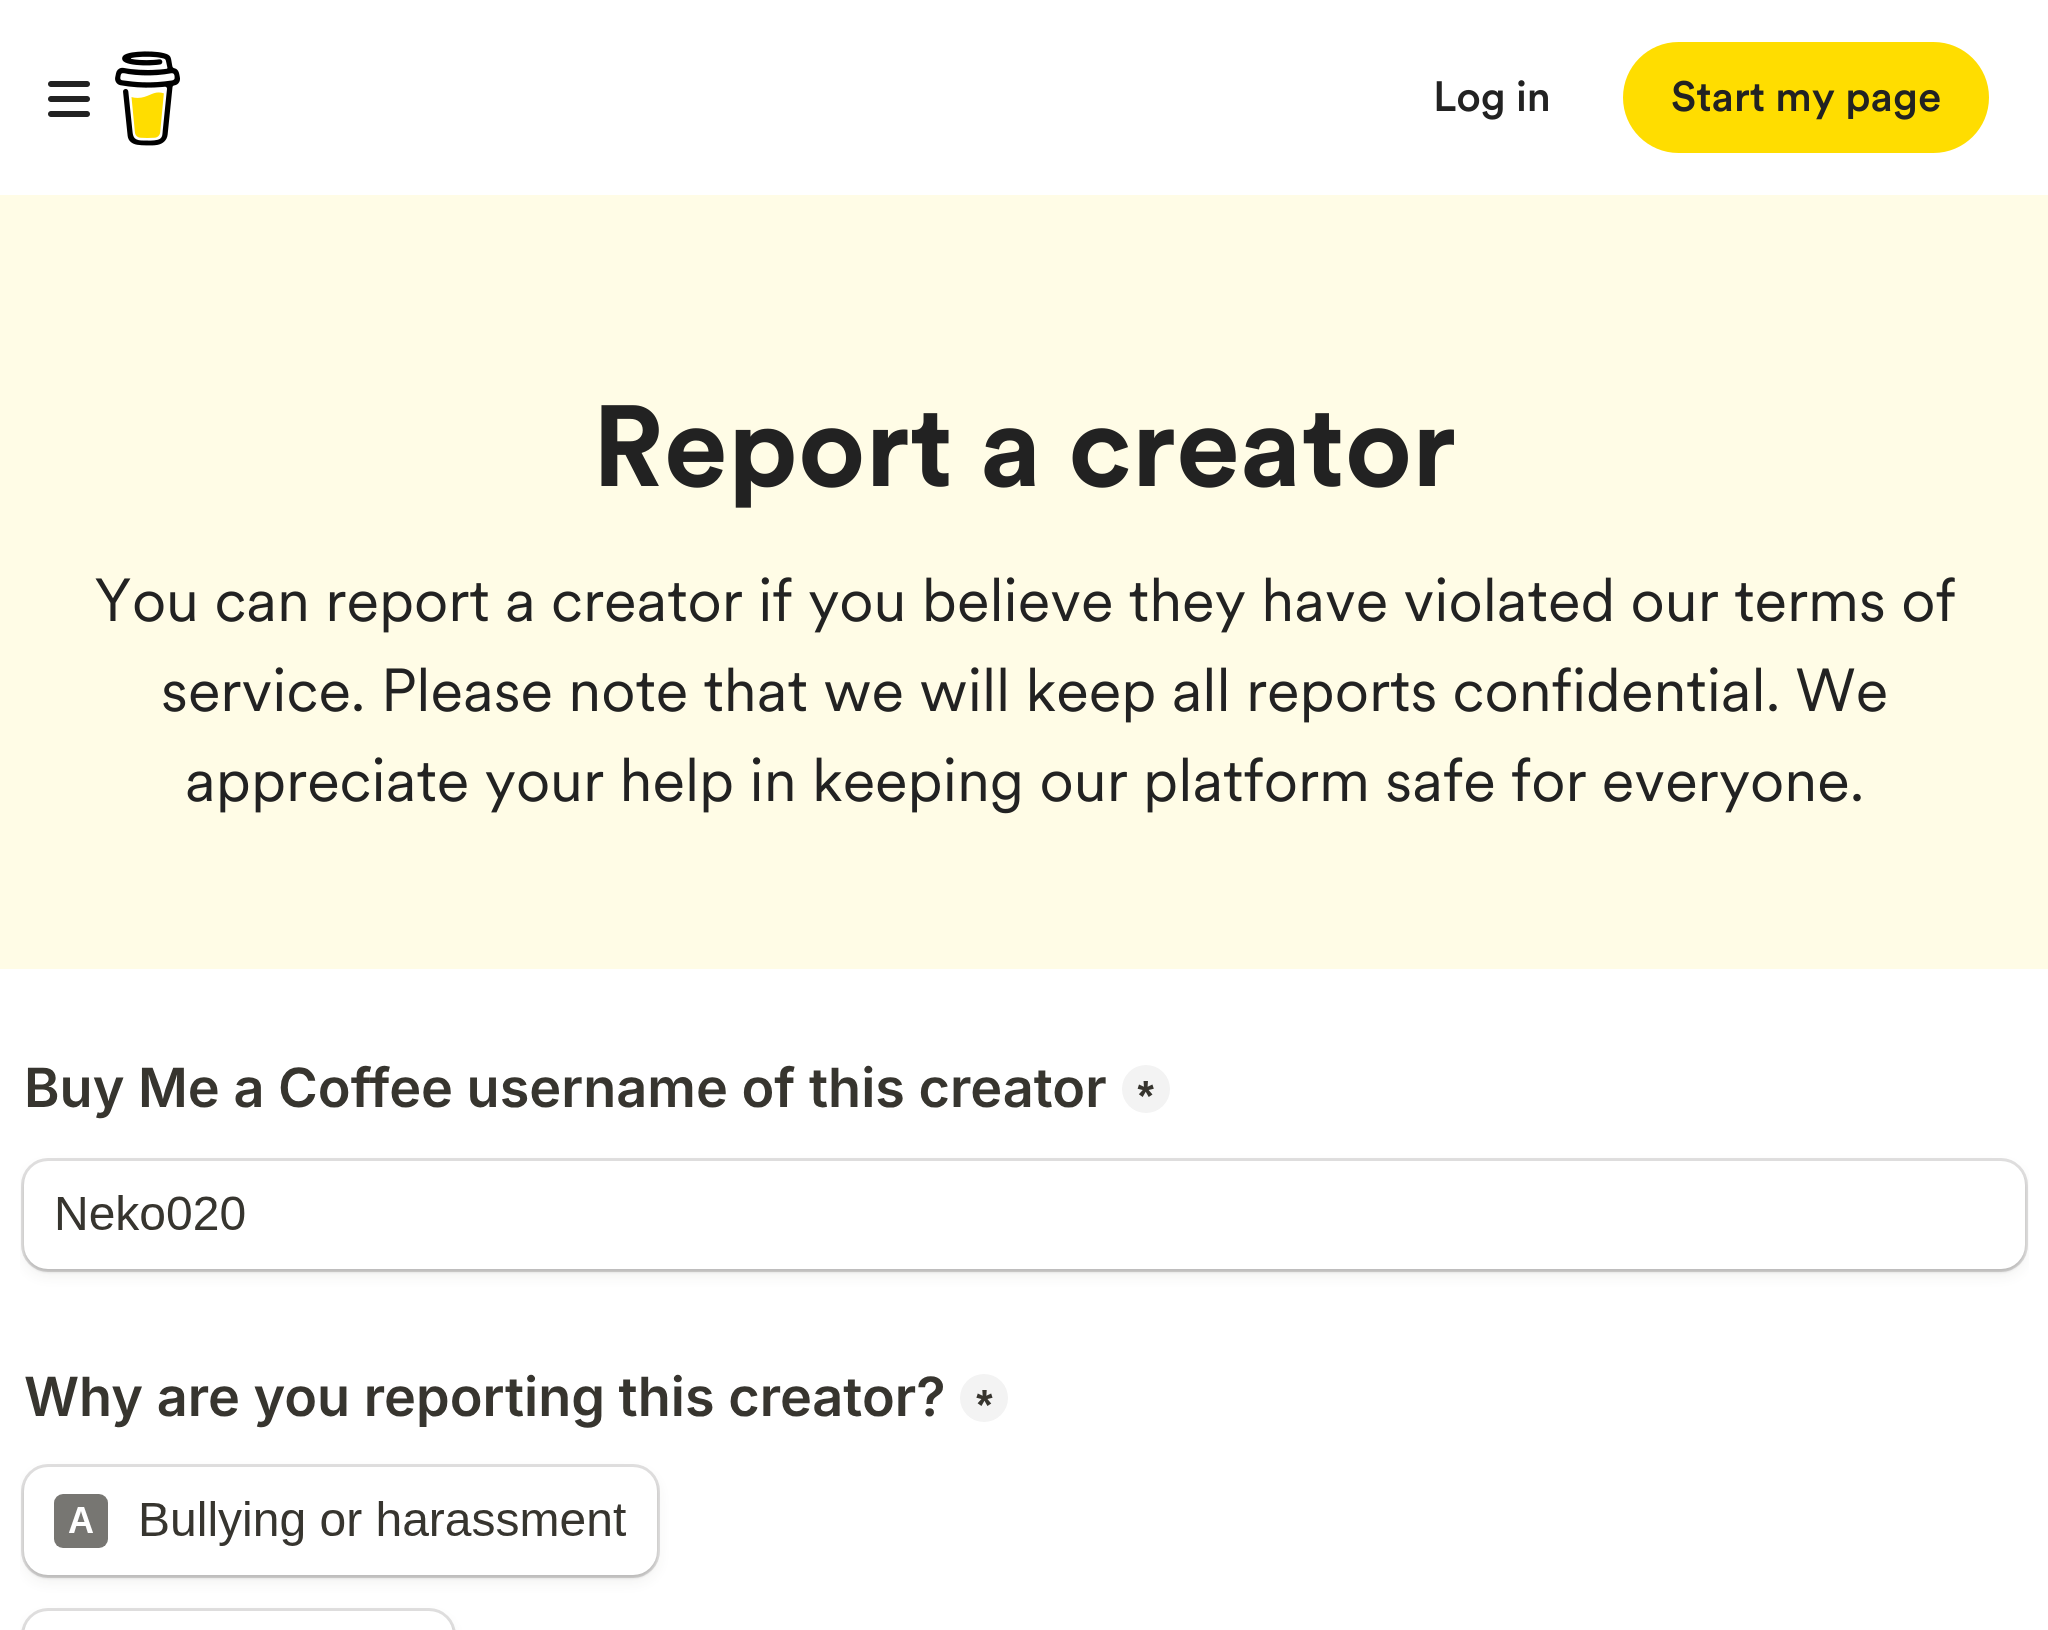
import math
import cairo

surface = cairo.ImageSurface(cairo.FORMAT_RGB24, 2048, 1630)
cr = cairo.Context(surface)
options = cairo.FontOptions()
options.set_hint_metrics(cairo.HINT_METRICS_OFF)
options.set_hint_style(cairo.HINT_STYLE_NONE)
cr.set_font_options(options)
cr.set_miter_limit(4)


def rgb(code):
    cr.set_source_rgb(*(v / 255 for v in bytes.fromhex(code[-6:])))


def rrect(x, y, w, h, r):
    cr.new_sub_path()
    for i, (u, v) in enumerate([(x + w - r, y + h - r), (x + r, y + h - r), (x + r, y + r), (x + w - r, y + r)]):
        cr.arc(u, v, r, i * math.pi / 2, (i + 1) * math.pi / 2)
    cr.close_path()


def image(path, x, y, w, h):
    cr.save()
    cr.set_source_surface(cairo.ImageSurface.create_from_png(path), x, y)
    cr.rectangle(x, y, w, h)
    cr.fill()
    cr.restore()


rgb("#ffffff")
cr.paint()
cr.new_path()
cr.move_to(51, 84)
cr.line_to(87, 84)
cr.move_to(51, 99)
cr.line_to(87, 99)
cr.move_to(51, 114)
cr.line_to(87, 114)
rgb("#222222")
cr.set_line_width(6)
cr.set_line_cap(cairo.LINE_CAP_ROUND)
cr.stroke()
image("img/1.png", 115, 51, 65, 95)
rgb("#ffdd00")
rrect(1623, 42, 366, 111, 55.5)
cr.fill()
rgb("#fffce6")
cr.rectangle(0, 195, 2048, 774)
cr.fill()
image("img/2.png", 20, 1065, 2009, 565)
cr.select_font_face("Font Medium")
cr.set_font_size(42)
rgb("#222222")
cr.move_to(1433, 111)
cr.show_text("Log in")
cr.move_to(1671, 111)
cr.show_text("Start my page")
cr.select_font_face("Font", cairo.FONT_SLANT_NORMAL, cairo.FONT_WEIGHT_BOLD)
cr.set_font_size(114)
cr.move_to(592, 486)
cr.show_text("Report a creator")
cr.select_font_face("Font")
cr.set_font_size(60)
for x, y, s in [
    (94, 621, "You can report a creator if you believe they have violated our terms of"),
    (161, 711, "service. Please note that we will keep all reports confidential. We"),
    (185, 801, "appreciate your help in keeping our platform safe for everyone."),
]:
    cr.move_to(x, y)
    cr.show_text(s)
surface.write_to_png("page.png")
